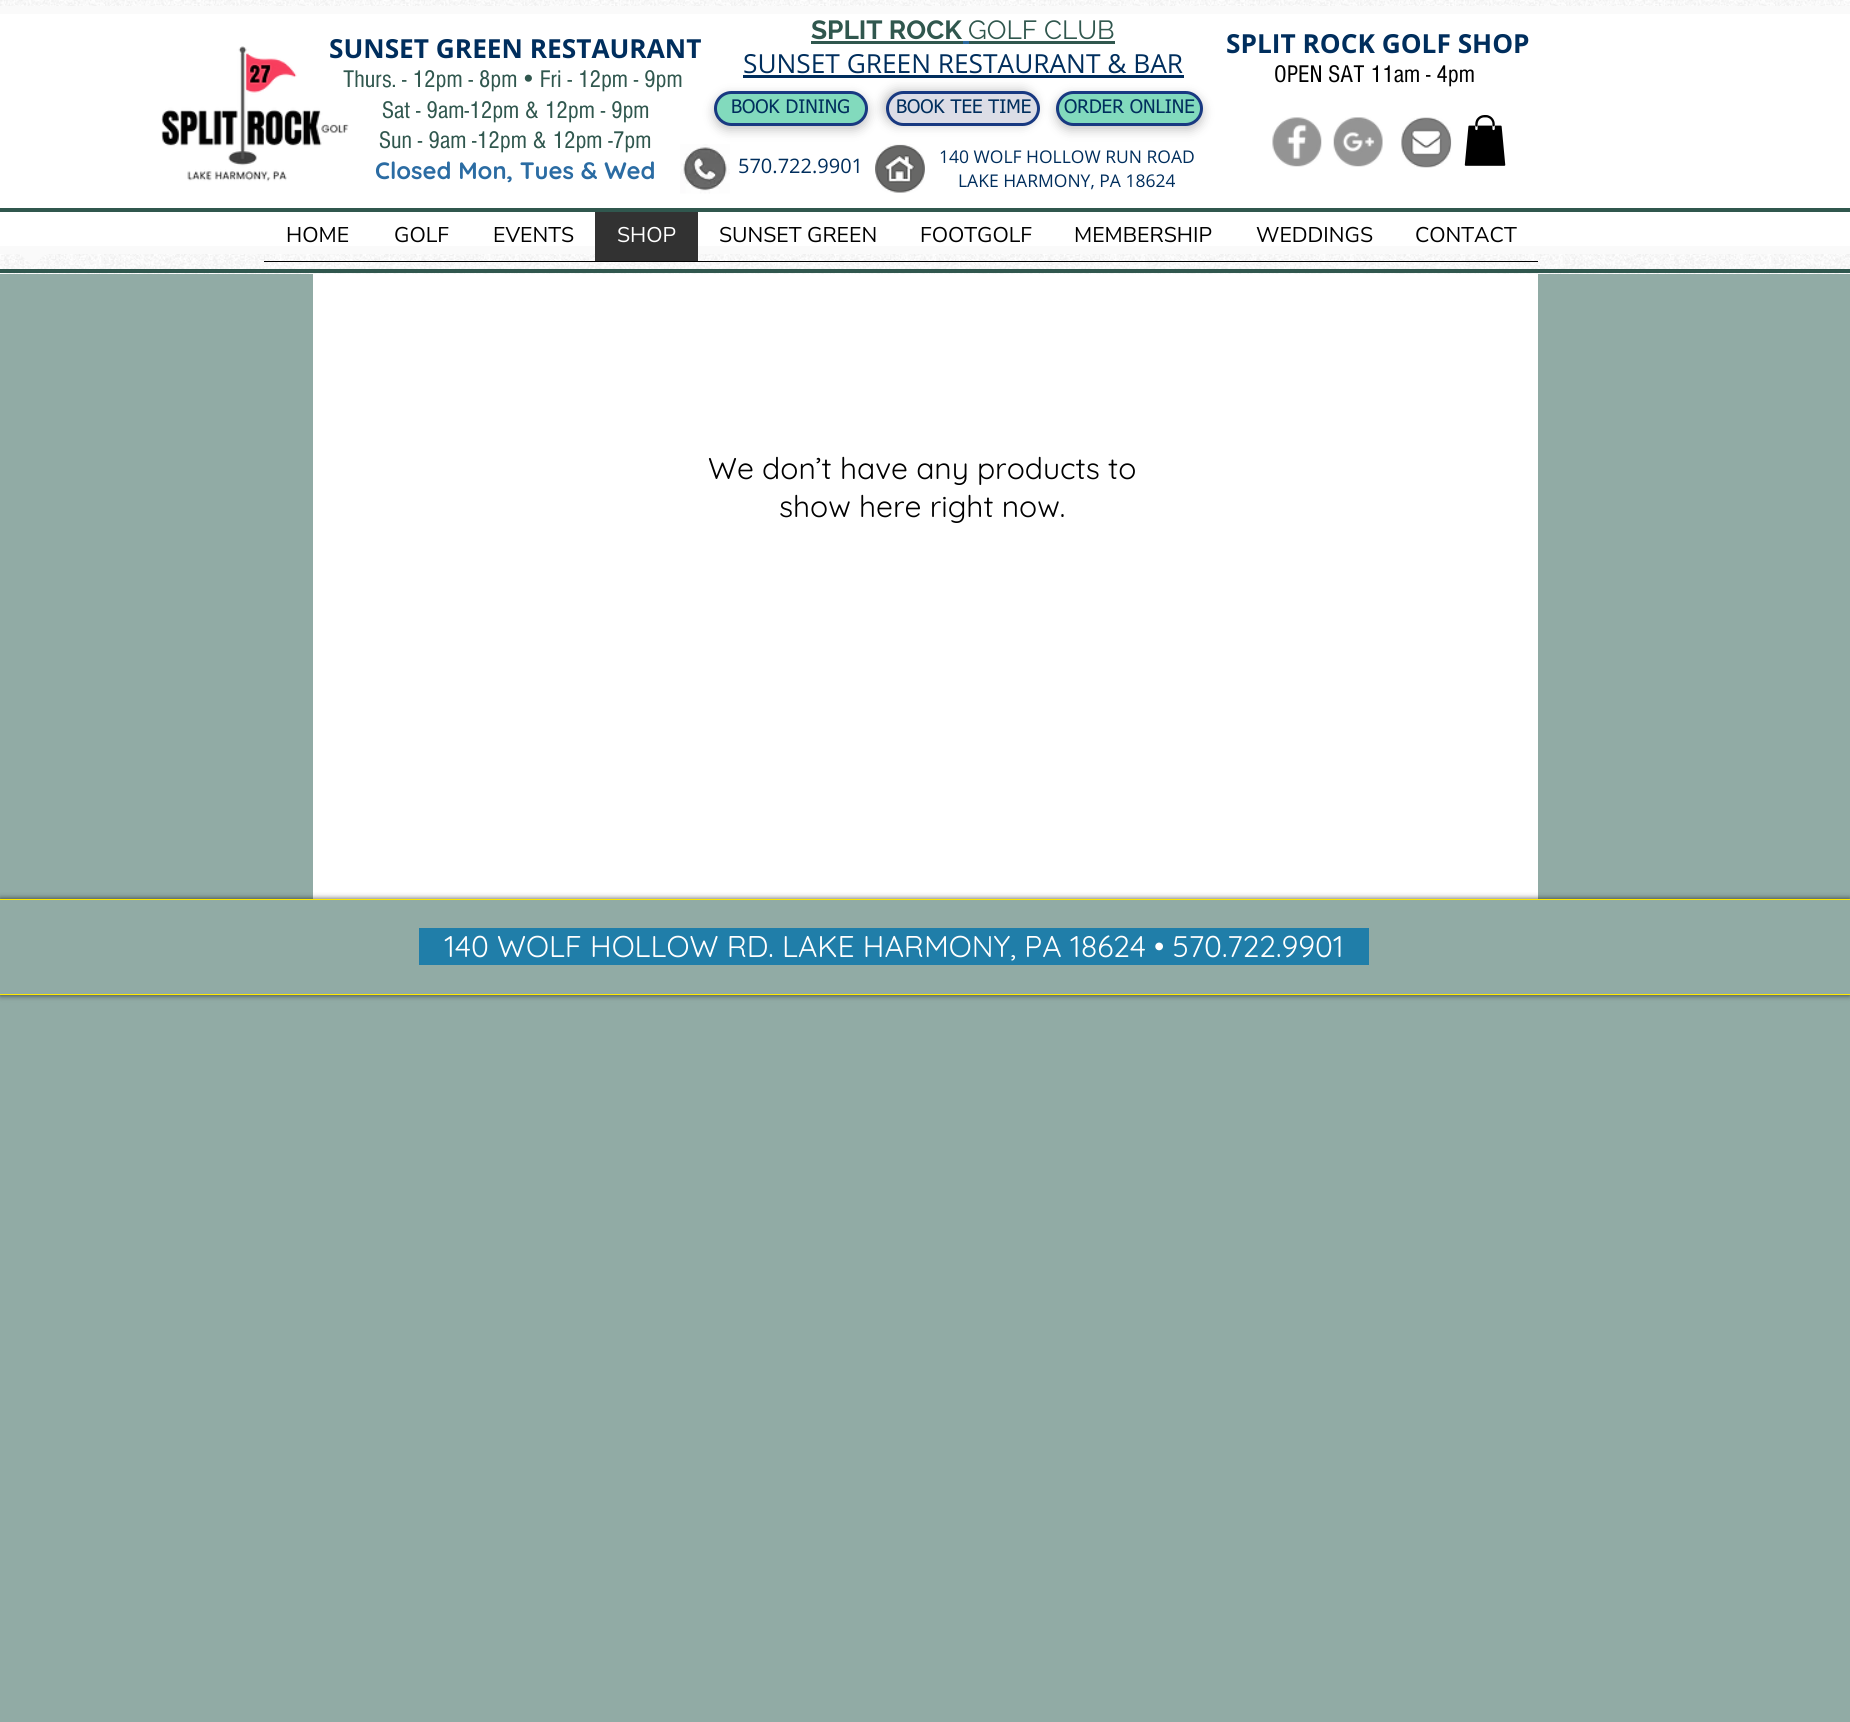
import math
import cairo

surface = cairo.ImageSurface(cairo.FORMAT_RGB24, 1850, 1722)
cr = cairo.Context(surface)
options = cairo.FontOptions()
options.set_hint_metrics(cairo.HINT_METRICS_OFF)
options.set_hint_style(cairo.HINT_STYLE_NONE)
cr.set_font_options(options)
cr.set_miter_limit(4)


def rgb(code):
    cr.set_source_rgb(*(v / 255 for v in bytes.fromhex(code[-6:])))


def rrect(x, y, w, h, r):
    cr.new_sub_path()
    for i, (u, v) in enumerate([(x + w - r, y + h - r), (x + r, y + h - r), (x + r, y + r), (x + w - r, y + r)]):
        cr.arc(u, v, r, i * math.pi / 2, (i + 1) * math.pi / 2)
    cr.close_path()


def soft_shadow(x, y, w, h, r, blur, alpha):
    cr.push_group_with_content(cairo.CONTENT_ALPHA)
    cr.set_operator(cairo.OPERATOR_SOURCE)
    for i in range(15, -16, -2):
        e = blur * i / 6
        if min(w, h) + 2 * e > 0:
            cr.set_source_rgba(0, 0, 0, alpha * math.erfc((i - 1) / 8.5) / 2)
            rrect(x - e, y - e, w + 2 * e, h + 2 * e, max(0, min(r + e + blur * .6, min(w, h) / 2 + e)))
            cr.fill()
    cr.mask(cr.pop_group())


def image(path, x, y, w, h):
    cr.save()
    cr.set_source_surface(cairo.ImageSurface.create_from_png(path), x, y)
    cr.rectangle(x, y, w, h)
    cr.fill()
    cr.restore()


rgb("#91aba5")
cr.paint()
rgb("#ffffff")
cr.rectangle(0, 0, 1850, 274)
cr.fill()
image("img/1.png", 0, 0, 1850, 274)
cr.rectangle(-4, 10, 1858, 240)
cr.fill_preserve()
rgb("#fafafa")
cr.set_line_width(8)
cr.stroke()
image("img/2.png", 161, 46, 188, 136)
for x, y, w, h, color in [
    (811, 41, 152, 3, "#30574e"),
    (963, 41, 6, 3, "#2b689c"),
    (969, 41, 146, 3, "#30574e"),
    (743, 75, 441, 3, "#002e5d"),
]:
    rgb(color)
    cr.rectangle(x, y, w, h)
    cr.fill()
rgb("#000000")
soft_shadow(714, 95, 154, 35, 17.5, 5.5, 0.23)
rgb("#82dabd")
rrect(715.5, 92.5, 151, 32, 16)
cr.fill_preserve()
rgb("#183981")
cr.set_line_width(3)
cr.stroke()
rgb("#000000")
soft_shadow(883, 90, 153, 35, 17.5, 5.5, 0.23)
rgb("#dcdde6")
rrect(887.5, 92.5, 151, 32, 16)
cr.fill_preserve()
rgb("#183981")
cr.stroke()
rgb("#000000")
soft_shadow(1056, 95, 147, 35, 17.5, 5.5, 0.23)
rgb("#82dabd")
rrect(1057.5, 92.5, 144, 32, 16)
cr.fill_preserve()
rgb("#183981")
cr.stroke()
image("img/3.png", 680, 144, 50, 50)
image("img/4.png", 875, 144, 50, 49)
image("img/5.png", 1272, 117, 50, 50)
image("img/6.png", 1333, 117, 50, 50)
image("img/7.png", 1401, 117, 51, 51)
image("img/8.png", 1464, 115, 42, 51)
rgb("#000000")
cr.rectangle(264, 261, 1274, 1)
cr.fill()
rgb("#323232")
cr.rectangle(595, 212, 103, 49)
cr.fill()
rgb("#fafafa")
cr.new_path()
cr.move_to(20, 254)
cr.line_to(45, 254)
cr.line_to(32.5, 266)
cr.close_path()
cr.fill()
for x, y, w, h, color in [
    (0, 208, 1850, 4, "#30574e"),
    (0, 269, 1850, 4, "#30574e"),
    (313, 274, 1225, 625, "#ffffff"),
]:
    rgb(color)
    cr.rectangle(x, y, w, h)
    cr.fill()
cr.save()
cr.set_fill_rule(cairo.FILL_RULE_EVEN_ODD)
cr.new_path()
cr.move_to(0, 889)
cr.line_to(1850, 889)
cr.line_to(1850, 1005)
cr.line_to(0, 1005)
cr.close_path()
cr.move_to(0, 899)
cr.line_to(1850, 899)
cr.line_to(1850, 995)
cr.line_to(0, 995)
cr.close_path()
cr.clip()
rgb("#000000")
soft_shadow(0, 899, 1850, 96, 0, 3, 0.7)
cr.restore()
for x, y, w, h, color in [
    (0, 899, 1850, 1, "#ffe900"),
    (0, 994, 1850, 1, "#ffe900"),
    (419, 928, 950, 37, "#207ea9"),
]:
    rgb(color)
    cr.rectangle(x, y, w, h)
    cr.fill()
cr.select_font_face("Open Sans", cairo.FONT_SLANT_NORMAL, cairo.FONT_WEIGHT_BOLD)
cr.set_font_size(26.25)
rgb("#002e5d")
cr.move_to(329, 58)
cr.show_text("SUNSET GREEN RESTAURANT")
cr.select_font_face("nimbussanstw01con")
cr.set_font_size(25)
rgb("#30574e")
cr.move_to(343, 87)
cr.show_text("Thurs. - 12pm - 8pm")
cr.select_font_face("Quicksand", cairo.FONT_SLANT_NORMAL, cairo.FONT_WEIGHT_BOLD)
cr.move_to(524, 87)
cr.show_text("•")
cr.select_font_face("nimbussanstw01con")
for x, y, s in [
    (540, 87, "Fri - 12pm - 9pm"),
    (382, 118, "Sat - 9am-12pm & 12pm - 9pm"),
    (379, 148, "Sun - 9am -12pm & 12pm -7pm"),
]:
    cr.move_to(x, y)
    cr.show_text(s)
cr.select_font_face("Quicksand", cairo.FONT_SLANT_NORMAL, cairo.FONT_WEIGHT_BOLD)
cr.set_font_size(23.75)
rgb("#2b6ca3")
cr.move_to(375, 179)
cr.show_text("Closed Mon, Tues & Wed")
cr.select_font_face("Raleway", cairo.FONT_SLANT_NORMAL, cairo.FONT_WEIGHT_BOLD)
cr.set_font_size(26.25)
rgb("#30574e")
cr.move_to(811, 39)
cr.show_text("SPLIT ROCK")
cr.select_font_face("Raleway")
cr.move_to(968, 39)
cr.show_text("GOLF CLUB")
cr.select_font_face("Open Sans")
rgb("#002e5d")
cr.move_to(743, 73)
cr.show_text("SUNSET GREEN RESTAURANT & BAR")
cr.select_font_face("Open Sans", cairo.FONT_SLANT_NORMAL, cairo.FONT_WEIGHT_BOLD)
cr.move_to(1226, 53)
cr.show_text("SPLIT ROCK GOLF SHOP")
cr.select_font_face("nimbussanstw01con")
cr.set_font_size(25)
rgb("#000000")
cr.move_to(1274, 82)
cr.show_text("OPEN SAT 11am - 4pm")
cr.select_font_face("tahoma")
cr.set_font_size(18.75)
rgb("#002e5d")
for x, y, s in [
    (731, 113, "BOOK DINING"),
    (896, 113, "BOOK TEE TIME"),
    (1064, 113, "ORDER ONLINE"),
]:
    cr.move_to(x, y)
    cr.show_text(s)
cr.select_font_face("Open Sans")
cr.set_font_size(20)
cr.move_to(738, 173)
cr.show_text("570.722.9901")
cr.set_font_size(17.5)
cr.move_to(939, 163)
cr.show_text("140 WOLF HOLLOW RUN ROAD")
cr.move_to(958, 187)
cr.show_text("LAKE HARMONY, PA 18624")
cr.select_font_face("Nunito Sans")
cr.set_font_size(21.25)
rgb("#000000")
for x, y, s in [
    (286, 242, "HOME"),
    (394, 242, "GOLF"),
    (493, 242, "EVENTS"),
]:
    cr.move_to(x, y)
    cr.show_text(s)
rgb("#ffffff")
cr.move_to(617, 242)
cr.show_text("SHOP")
rgb("#000000")
for x, y, s in [
    (719, 242, "SUNSET GREEN"),
    (920, 242, "FOOTGOLF"),
    (1074, 242, "MEMBERSHIP"),
    (1256, 242, "WEDDINGS"),
    (1415, 242, "CONTACT"),
]:
    cr.move_to(x, y)
    cr.show_text(s)
cr.select_font_face("Quicksand")
cr.set_font_size(30)
cr.move_to(708, 479)
cr.show_text("We don’t have any products to")
cr.move_to(779, 517)
cr.show_text("show here right now.")
rgb("#ffffff")
cr.move_to(444, 957)
cr.show_text("140 WOLF HOLLOW RD. LAKE HARMONY, PA 18624 • 570.722.9901")
surface.write_to_png("page.png")
